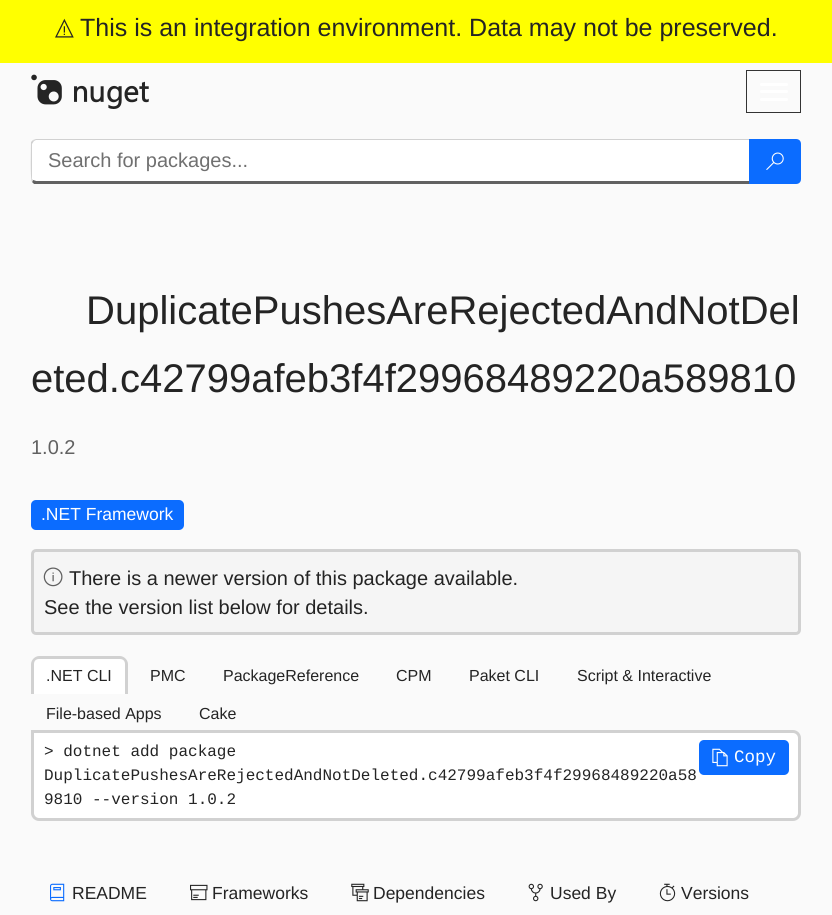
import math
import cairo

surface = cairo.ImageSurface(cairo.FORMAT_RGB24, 832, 915)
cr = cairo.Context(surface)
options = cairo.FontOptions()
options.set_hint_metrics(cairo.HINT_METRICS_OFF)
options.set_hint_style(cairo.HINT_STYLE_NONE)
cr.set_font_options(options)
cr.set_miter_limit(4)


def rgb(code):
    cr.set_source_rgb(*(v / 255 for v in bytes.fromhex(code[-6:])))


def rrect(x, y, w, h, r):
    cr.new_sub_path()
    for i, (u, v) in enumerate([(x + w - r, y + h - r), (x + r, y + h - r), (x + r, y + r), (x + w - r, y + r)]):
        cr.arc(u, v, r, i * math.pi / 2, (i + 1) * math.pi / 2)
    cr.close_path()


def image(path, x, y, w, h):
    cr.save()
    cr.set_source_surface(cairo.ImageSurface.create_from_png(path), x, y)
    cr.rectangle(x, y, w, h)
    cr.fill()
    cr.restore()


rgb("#fafafa")
cr.paint()
rgb("#ffff00")
cr.rectangle(0, 0, 832, 63)
cr.fill()
image("img/1.png", 55, 18, 19, 20)
image("img/2.png", 31, 74, 118, 35)
cr.rectangle(746.5, 70.5, 54, 42)
rgb("#333333")
cr.set_line_width(1)
cr.stroke()
rgb("#ffffff")
rrect(760, 83, 28, 3, 1.5)
cr.fill()
rrect(760, 90, 28, 3, 1.5)
cr.fill()
rrect(760, 98, 28, 3, 1.5)
cr.fill()
cr.new_path()
cr.move_to(36, 140)
cr.line_to(749, 140)
cr.line_to(749, 181)
cr.line_to(36, 181)
cr.curve_to(34, 181, 32, 180, 32, 179)
cr.line_to(32, 144)
cr.curve_to(32, 142, 34, 140, 36, 140)
cr.close_path()
cr.fill()
rgb("#d1d1d1")
cr.new_path()
cr.move_to(36, 139)
cr.line_to(33, 140)
cr.line_to(34, 141)
cr.line_to(36, 140)
cr.line_to(749, 140)
cr.line_to(750, 139)
cr.close_path()
cr.fill()
rgb("#616161")
cr.new_path()
cr.move_to(750, 184)
cr.line_to(34, 184)
cr.line_to(32, 182)
cr.line_to(33, 180)
cr.line_to(36, 181)
cr.line_to(749, 181)
cr.close_path()
cr.fill()
rgb("#d1d1d1")
cr.new_path()
cr.move_to(31, 142)
cr.line_to(33, 140)
cr.line_to(34, 141)
cr.line_to(32, 144)
cr.line_to(32, 179)
cr.line_to(33, 180)
cr.line_to(32, 182)
cr.curve_to(30, 180, 31, 148, 31, 142)
cr.close_path()
cr.fill()
rgb("#0b6cff")
cr.new_path()
cr.move_to(749, 139)
cr.line_to(796, 139)
cr.curve_to(799, 139, 801, 141, 801, 144)
cr.line_to(801, 179)
cr.curve_to(801, 182, 799, 184, 796, 184)
cr.line_to(749, 184)
cr.close_path()
cr.fill()
image("img/3.png", 766, 152, 18, 18)
rrect(31, 500, 153, 30, 5)
cr.fill()
rgb("#f5f5f5")
rrect(32.5, 550.5, 767, 83, 3.5)
cr.fill_preserve()
rgb("#d1d1d1")
cr.set_line_width(3)
cr.stroke()
image("img/4.png", 43, 567, 20, 20)
rgb("#ffffff")
cr.new_path()
cr.move_to(39, 656)
cr.line_to(120, 656)
cr.curve_to(124.5, 656, 128, 659.5, 128, 664)
cr.line_to(128, 694)
cr.line_to(31, 694)
cr.line_to(31, 664)
cr.curve_to(31, 659.5, 34.5, 656, 39, 656)
cr.close_path()
cr.fill()
rgb("#d1d1d1")
cr.set_fill_rule(cairo.FILL_RULE_EVEN_ODD)
cr.new_path()
cr.move_to(39, 656)
cr.line_to(120, 656)
cr.curve_to(124, 656, 128, 660, 128, 664)
cr.line_to(128, 694)
cr.line_to(31, 694)
cr.line_to(31, 664)
cr.curve_to(31, 660, 35, 656, 39, 656)
cr.close_path()
cr.move_to(39, 659)
cr.line_to(120, 659)
cr.curve_to(123, 659, 125, 661, 125, 664)
cr.line_to(125, 694)
cr.line_to(34, 694)
cr.line_to(34, 664)
cr.curve_to(34, 661, 36, 659, 39, 659)
cr.close_path()
cr.fill()
rgb("#ffffff")
cr.new_path()
cr.move_to(32.5, 731.5)
cr.line_to(793, 731.5)
cr.curve_to(796.5, 731.5, 799.5, 734.5, 799.5, 738)
cr.line_to(799.5, 813)
cr.curve_to(799.5, 816.5, 796.5, 819.5, 793, 819.5)
cr.line_to(39, 819.5)
cr.curve_to(35.5, 819.5, 32.5, 816.5, 32.5, 813)
cr.close_path()
cr.fill_preserve()
rgb("#d1d1d1")
cr.stroke()
rgb("#0b6cff")
rrect(699, 740, 90, 35, 5)
cr.fill()
image("img/5.png", 712, 748, 16, 19)
image("img/6.png", 50, 883, 15, 19)
image("img/7.png", 190, 884, 18, 17)
image("img/8.png", 351, 883, 18, 19)
image("img/9.png", 528, 883, 15, 19)
image("img/10.png", 659, 883, 17, 19)
cr.select_font_face("Liberation Sans")
cr.set_font_size(25)
rgb("#242424")
cr.move_to(80, 36)
cr.show_text("This is an integration environment. Data may not be preserved.")
cr.set_font_size(20)
rgb("#707070")
cr.move_to(48, 167)
cr.show_text("Search for packages...")
cr.set_font_size(40)
rgb("#242424")
cr.move_to(86, 324)
cr.show_text("DuplicatePushesAreRejectedAndNotDel")
cr.move_to(31, 392)
cr.show_text("eted.c42799afeb3f4f29968489220a589810")
cr.set_font_size(20)
rgb("#616161")
cr.move_to(31, 454)
cr.show_text("1.0.2")
cr.set_font_size(17.5)
rgb("#ffffff")
cr.move_to(41, 520)
cr.show_text(".NET Framework")
cr.set_font_size(20)
rgb("#242424")
cr.move_to(69, 585)
cr.show_text("There is a newer version of this package available.")
cr.move_to(44, 614)
cr.show_text("See the version list below for details.")
cr.set_font_size(16)
for x, y, s in [
    (46, 681, ".NET CLI"),
    (150, 681, "PMC"),
    (223, 681, "PackageReference"),
    (396, 681, "CPM"),
    (469, 681, "Paket CLI"),
    (577, 681, "Script & Interactive"),
    (46, 719, "File-based Apps"),
    (199, 719, "Cake"),
]:
    cr.move_to(x, y)
    cr.show_text(s)
cr.select_font_face("Liberation Mono")
for x, y, s in [
    (44, 756, "> dotnet add package"),
    (44, 780, "DuplicatePushesAreRejectedAndNotDeleted.c42799afeb3f4f29968489220a58"),
    (44, 804, "9810 --version 1.0.2"),
]:
    cr.move_to(x, y)
    cr.show_text(s)
cr.set_font_size(17.5)
rgb("#ffffff")
cr.move_to(734, 762)
cr.show_text("Copy")
cr.select_font_face("Liberation Sans")
rgb("#242424")
for x, y, s in [
    (72, 899, "README"),
    (212, 899, "Frameworks"),
    (373, 899, "Dependencies"),
    (550, 899, "Used By"),
    (681, 899, "Versions"),
]:
    cr.move_to(x, y)
    cr.show_text(s)
surface.write_to_png("page.png")
